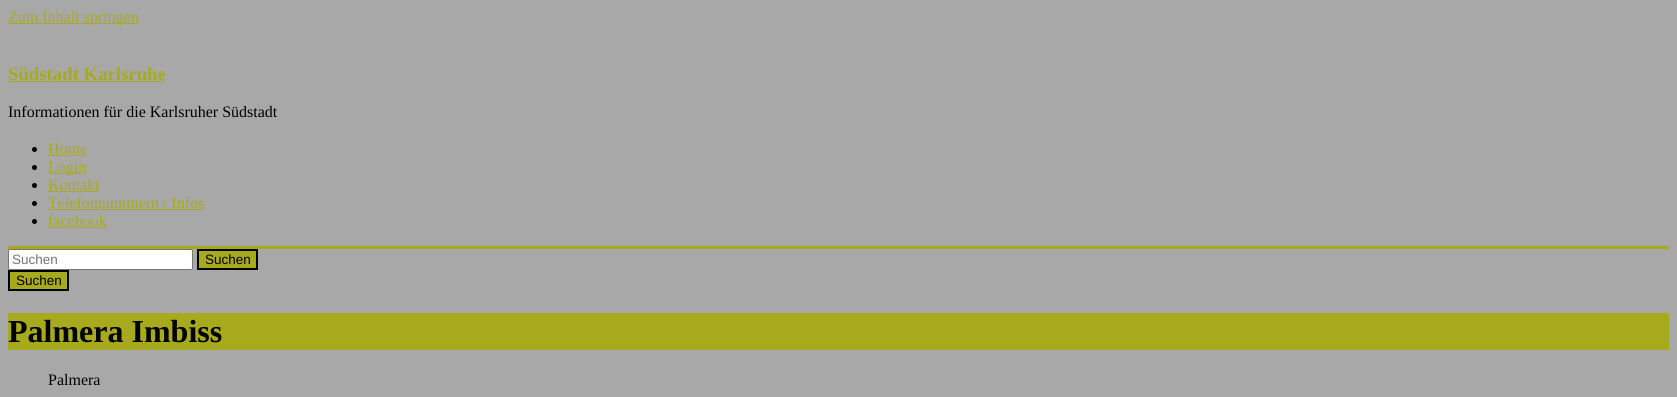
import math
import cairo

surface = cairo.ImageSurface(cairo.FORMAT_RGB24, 1677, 397)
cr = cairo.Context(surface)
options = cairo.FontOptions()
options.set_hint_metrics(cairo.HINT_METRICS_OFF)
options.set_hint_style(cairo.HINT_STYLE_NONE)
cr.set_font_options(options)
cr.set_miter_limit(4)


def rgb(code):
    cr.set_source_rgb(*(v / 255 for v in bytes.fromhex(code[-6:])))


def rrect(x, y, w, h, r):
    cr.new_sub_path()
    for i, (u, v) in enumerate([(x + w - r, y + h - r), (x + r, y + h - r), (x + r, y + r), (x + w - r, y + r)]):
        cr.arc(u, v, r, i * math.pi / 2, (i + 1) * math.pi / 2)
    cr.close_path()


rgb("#a8a8a8")
cr.paint()
rgb("#a8aa1d")
cr.rectangle(8, 23, 131, 1)
cr.fill()
cr.rectangle(8, 81, 157, 1)
cr.fill()
rgb("#000000")
cr.arc(34.5, 149.5, 2.5, 0, 2 * math.pi)
cr.fill()
rgb("#a8aa1d")
cr.rectangle(48, 155, 39, 1)
cr.fill()
rgb("#000000")
cr.arc(34.5, 167.5, 2.5, 0, 2 * math.pi)
cr.fill()
rgb("#a8aa1d")
cr.rectangle(48, 173, 38, 1)
cr.fill()
rgb("#000000")
cr.arc(34.5, 185.5, 2.5, 0, 2 * math.pi)
cr.fill()
rgb("#a8aa1d")
cr.rectangle(48, 191, 52, 1)
cr.fill()
rgb("#000000")
cr.arc(34.5, 203.5, 2.5, 0, 2 * math.pi)
cr.fill()
rgb("#a8aa1d")
cr.rectangle(48, 209, 156, 1)
cr.fill()
rgb("#000000")
cr.arc(34.5, 221.5, 2.5, 0, 2 * math.pi)
cr.fill()
rgb("#a8aa1d")
cr.rectangle(48, 227, 59, 1)
cr.fill()
cr.rectangle(8, 246, 1661, 3)
cr.fill()
rgb("#ffffff")
rrect(8.5, 249.5, 184, 20, 1.5)
cr.fill_preserve()
rgb("#767676")
cr.set_line_width(1)
cr.stroke()
rgb("#a8aa1d")
cr.rectangle(198, 250, 59, 19)
cr.fill_preserve()
rgb("#000000")
cr.set_line_width(2)
cr.stroke()
rgb("#a8aa1d")
cr.rectangle(9, 271, 59, 19)
cr.fill_preserve()
rgb("#000000")
cr.stroke()
rgb("#a8aa1d")
cr.rectangle(8, 313, 1661, 37)
cr.fill()
cr.select_font_face("Liberation Serif")
cr.set_font_size(16)
cr.move_to(8, 22)
cr.show_text("Zum Inhalt springen")
cr.select_font_face("Liberation Serif", cairo.FONT_SLANT_NORMAL, cairo.FONT_WEIGHT_BOLD)
cr.set_font_size(18.75)
cr.move_to(8, 80)
cr.show_text("Südstadt Karlsruhe")
cr.select_font_face("Liberation Serif")
cr.set_font_size(16)
rgb("#000000")
cr.move_to(8, 117)
cr.show_text("Informationen für die Karlsruher Südstadt")
rgb("#a8aa1d")
for x, y, s in [
    (48, 154, "Home"),
    (48, 172, "Login"),
    (48, 190, "Kontakt"),
    (48, 208, "Telefonnummern / Infos"),
    (48, 226, "facebook"),
]:
    cr.move_to(x, y)
    cr.show_text(s)
cr.select_font_face("Liberation Sans")
cr.set_font_size(13.5)
rgb("#757575")
cr.move_to(12, 264)
cr.show_text("Suchen")
rgb("#000000")
cr.move_to(205, 264)
cr.show_text("Suchen")
cr.move_to(16, 285)
cr.show_text("Suchen")
cr.select_font_face("Liberation Serif", cairo.FONT_SLANT_NORMAL, cairo.FONT_WEIGHT_BOLD)
cr.set_font_size(32)
cr.move_to(8, 342)
cr.show_text("Palmera Imbiss")
cr.select_font_face("Liberation Serif")
cr.set_font_size(16)
cr.move_to(48, 385)
cr.show_text("Palmera")
surface.write_to_png("page.png")
